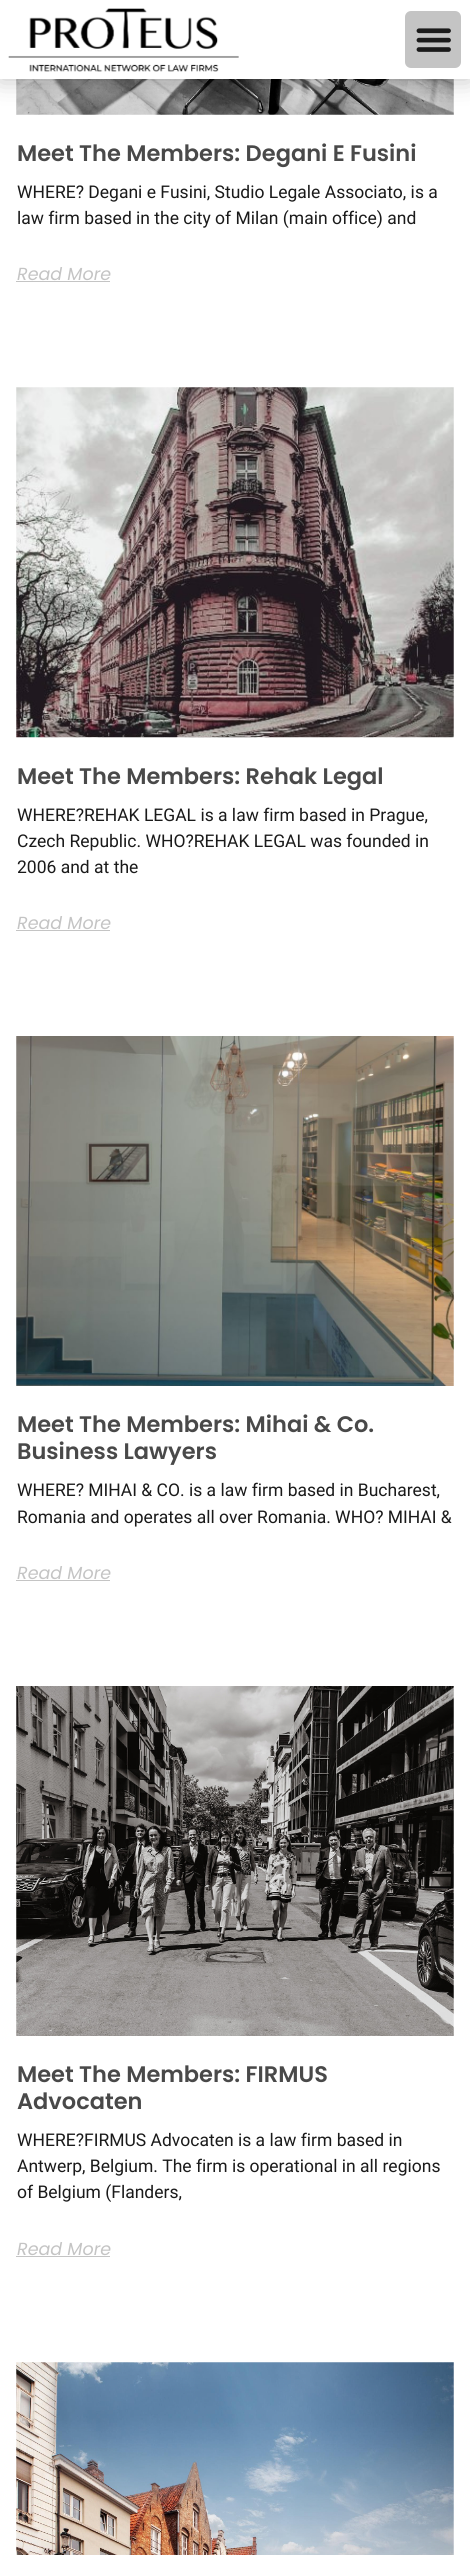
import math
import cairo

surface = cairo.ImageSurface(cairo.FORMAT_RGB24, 470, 2555)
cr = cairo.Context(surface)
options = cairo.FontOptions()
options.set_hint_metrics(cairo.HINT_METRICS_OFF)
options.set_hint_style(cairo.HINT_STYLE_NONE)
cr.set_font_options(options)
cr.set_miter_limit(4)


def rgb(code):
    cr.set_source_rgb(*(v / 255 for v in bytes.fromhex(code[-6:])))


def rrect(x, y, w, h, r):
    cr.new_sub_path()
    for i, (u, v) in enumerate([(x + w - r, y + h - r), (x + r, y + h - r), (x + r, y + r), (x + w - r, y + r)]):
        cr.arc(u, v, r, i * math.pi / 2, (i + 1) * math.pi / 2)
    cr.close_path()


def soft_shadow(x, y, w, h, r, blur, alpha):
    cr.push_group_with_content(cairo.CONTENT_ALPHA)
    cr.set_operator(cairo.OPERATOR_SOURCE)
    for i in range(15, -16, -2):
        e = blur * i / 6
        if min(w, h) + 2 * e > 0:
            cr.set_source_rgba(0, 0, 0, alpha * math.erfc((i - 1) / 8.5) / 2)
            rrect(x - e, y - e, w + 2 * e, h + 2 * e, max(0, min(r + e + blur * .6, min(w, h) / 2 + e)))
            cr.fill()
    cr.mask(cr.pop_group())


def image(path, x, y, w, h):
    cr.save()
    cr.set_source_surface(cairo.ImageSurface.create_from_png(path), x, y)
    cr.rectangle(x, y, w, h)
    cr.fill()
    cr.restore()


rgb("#ffffff")
cr.paint()
image("img/3.png", 16, 79, 438, 36)
rgb("#000000")
soft_shadow(0, 0, 470, 79, 0, 12.5, 0.25)
rgb("#ffffff")
cr.rectangle(0, 0, 470, 79)
cr.fill()
image("img/1.png", 8, 8, 231, 64)
rgb("#c4c4c4")
rrect(405, 11, 56, 57, 6)
cr.fill()
image("img/2.png", 416, 28, 35, 24)
cr.rectangle(16, 281, 94, 1)
cr.fill()
image("img/4.png", 16, 387, 438, 351)
cr.rectangle(16, 930, 94, 1)
cr.fill()
image("img/5.png", 16, 1036, 438, 350)
cr.rectangle(16, 1580, 94, 1)
cr.fill()
image("img/6.png", 16, 1686, 438, 350)
cr.rectangle(16, 2256, 94, 1)
cr.fill()
image("img/7.png", 16, 2362, 438, 193)
cr.select_font_face("Poppins SemiBold")
cr.set_font_size(22.5)
rgb("#494949")
cr.move_to(17, 161)
cr.show_text("Meet The Members: Degani E Fusini")
cr.select_font_face("Roboto")
cr.set_font_size(17.5)
rgb("#1a1a1a")
cr.move_to(17, 198)
cr.show_text("WHERE? Degani e Fusini, Studio Legale Associato, is a")
cr.move_to(17, 224)
cr.show_text("law firm based in the city of Milan (main office) and")
cr.select_font_face("Poppins", cairo.FONT_SLANT_ITALIC)
rgb("#c4c4c4")
cr.move_to(17, 280)
cr.show_text("Read More")
cr.select_font_face("Poppins SemiBold")
cr.set_font_size(22.5)
rgb("#494949")
cr.move_to(17, 784)
cr.show_text("Meet The Members: Rehak Legal")
cr.select_font_face("Roboto")
cr.set_font_size(17.5)
rgb("#1a1a1a")
for x, y, s in [
    (17, 821, "WHERE?REHAK LEGAL is a law firm based in Prague,"),
    (17, 847, "Czech Republic. WHO?REHAK LEGAL was founded in"),
    (17, 873, "2006 and at the"),
]:
    cr.move_to(x, y)
    cr.show_text(s)
cr.select_font_face("Poppins", cairo.FONT_SLANT_ITALIC)
rgb("#c4c4c4")
cr.move_to(17, 929)
cr.show_text("Read More")
cr.select_font_face("Poppins SemiBold")
cr.set_font_size(22.5)
rgb("#494949")
cr.move_to(17, 1432)
cr.show_text("Meet The Members: Mihai & Co.")
cr.move_to(17, 1459)
cr.show_text("Business Lawyers")
cr.select_font_face("Roboto")
cr.set_font_size(17.5)
rgb("#1a1a1a")
cr.move_to(17, 1496)
cr.show_text("WHERE? MIHAI & CO. is a law firm based in Bucharest,")
cr.move_to(17, 1523)
cr.show_text("Romania and operates all over Romania. WHO? MIHAI &")
cr.select_font_face("Poppins", cairo.FONT_SLANT_ITALIC)
rgb("#c4c4c4")
cr.move_to(17, 1579)
cr.show_text("Read More")
cr.select_font_face("Poppins SemiBold")
cr.set_font_size(22.5)
rgb("#494949")
cr.move_to(17, 2082)
cr.show_text("Meet The Members: FIRMUS")
cr.move_to(17, 2109)
cr.show_text("Advocaten")
cr.select_font_face("Roboto")
cr.set_font_size(17.5)
rgb("#1a1a1a")
for x, y, s in [
    (17, 2146, "WHERE?FIRMUS Advocaten is a law firm based in"),
    (17, 2172, "Antwerp, Belgium. The firm is operational in all regions"),
    (17, 2198, "of Belgium (Flanders,"),
]:
    cr.move_to(x, y)
    cr.show_text(s)
cr.select_font_face("Poppins", cairo.FONT_SLANT_ITALIC)
rgb("#c4c4c4")
cr.move_to(17, 2255)
cr.show_text("Read More")
surface.write_to_png("page.png")
